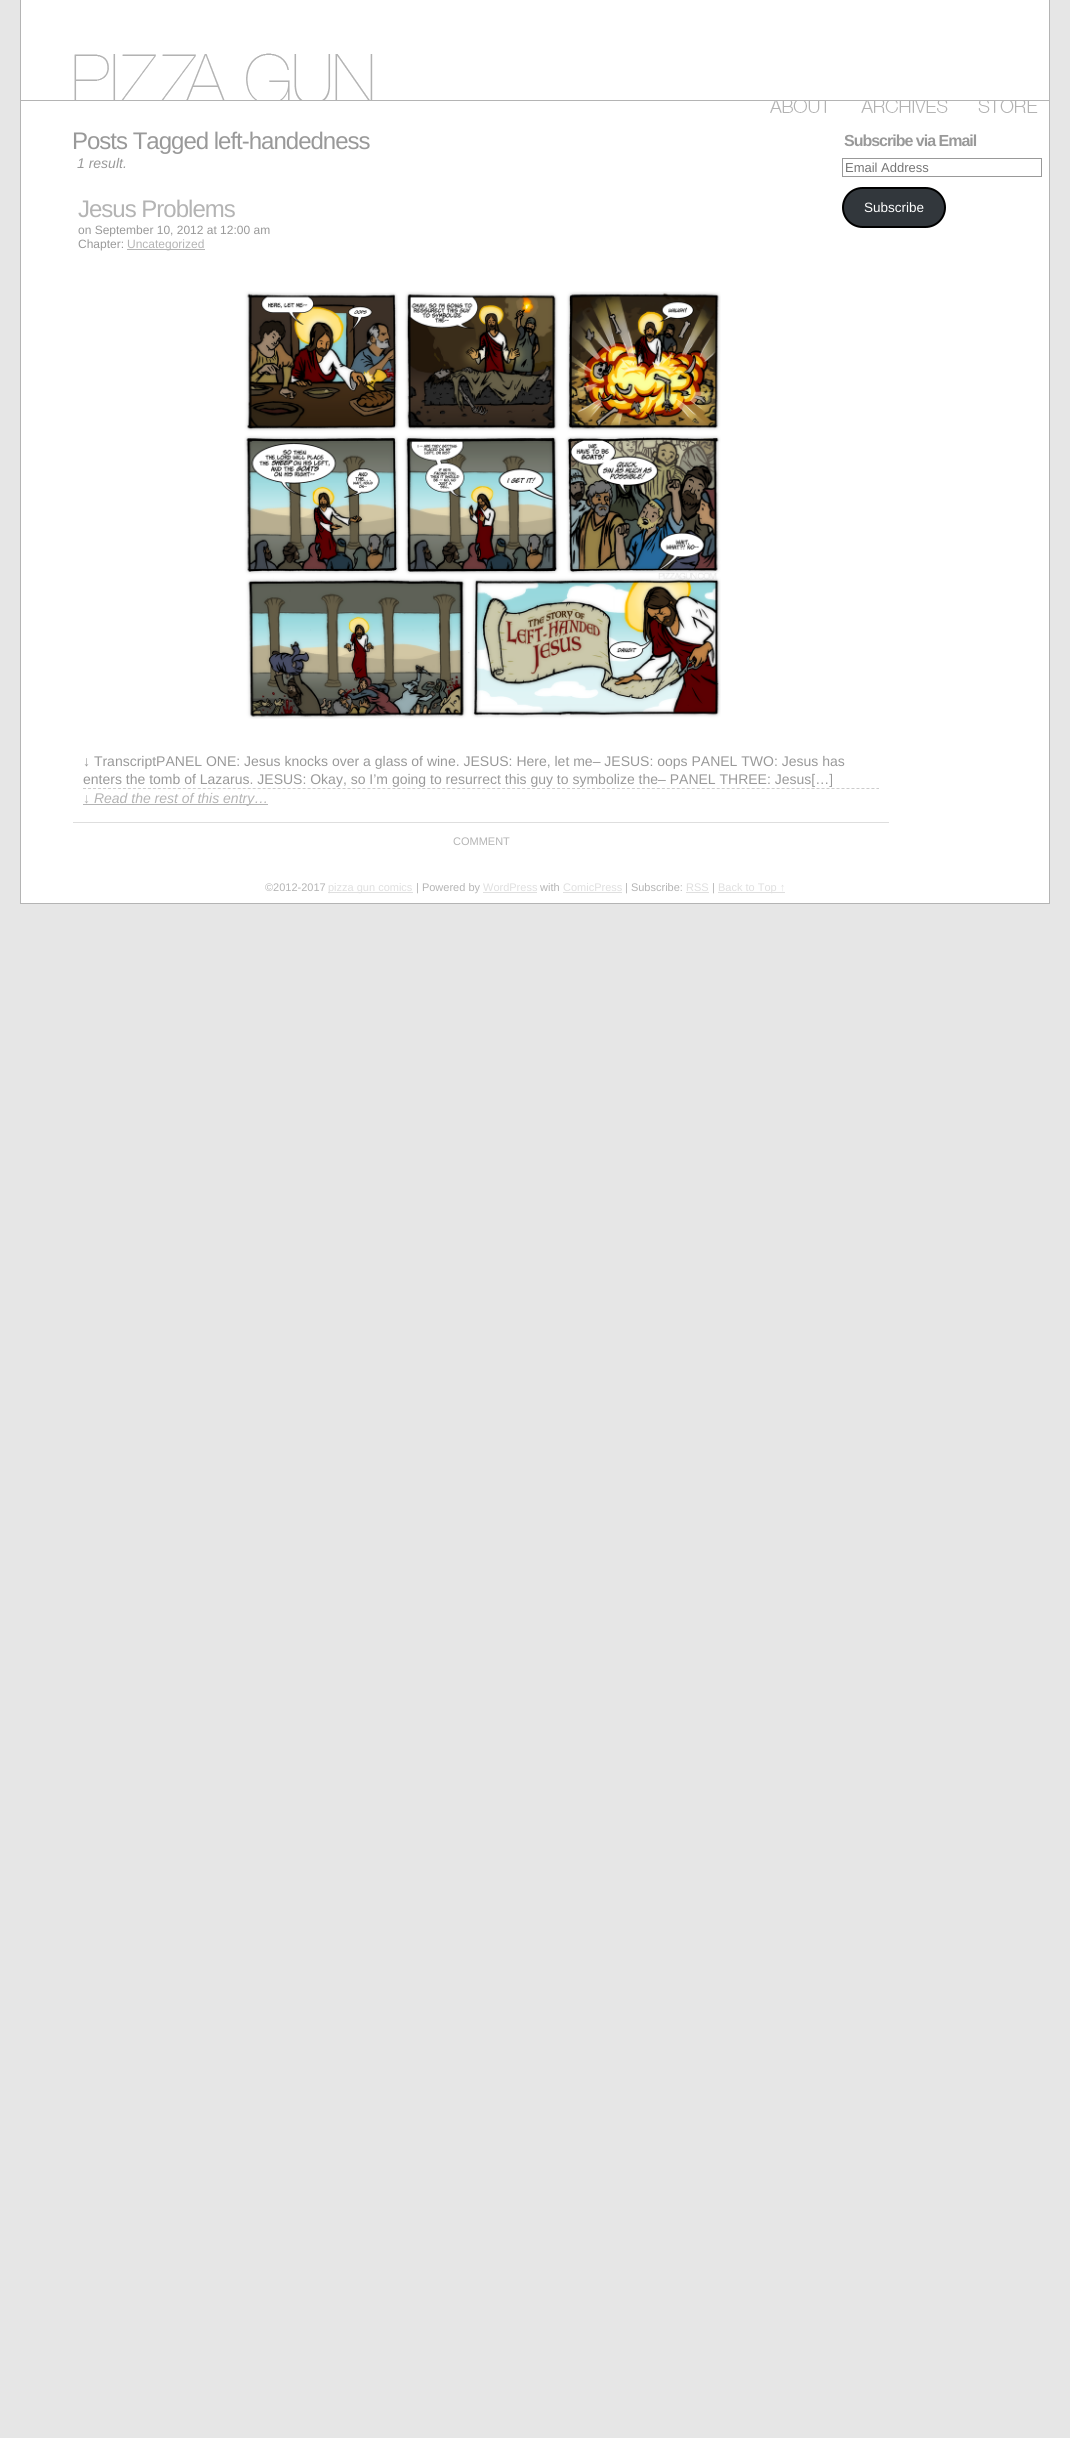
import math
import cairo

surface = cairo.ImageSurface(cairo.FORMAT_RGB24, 1070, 2438)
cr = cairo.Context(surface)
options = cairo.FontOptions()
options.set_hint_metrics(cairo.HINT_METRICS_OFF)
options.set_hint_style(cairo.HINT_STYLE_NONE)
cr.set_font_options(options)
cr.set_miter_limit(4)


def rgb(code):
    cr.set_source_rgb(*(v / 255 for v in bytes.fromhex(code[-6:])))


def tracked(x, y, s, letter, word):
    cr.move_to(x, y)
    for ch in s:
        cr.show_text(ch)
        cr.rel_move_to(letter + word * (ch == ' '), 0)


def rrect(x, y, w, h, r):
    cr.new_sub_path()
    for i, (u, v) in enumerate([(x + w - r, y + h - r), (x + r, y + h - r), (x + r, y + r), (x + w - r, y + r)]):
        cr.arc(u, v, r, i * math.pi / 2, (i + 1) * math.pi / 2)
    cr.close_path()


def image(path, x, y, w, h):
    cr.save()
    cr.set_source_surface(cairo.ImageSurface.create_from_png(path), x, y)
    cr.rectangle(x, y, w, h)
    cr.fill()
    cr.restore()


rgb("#e6e6e6")
cr.paint()
for x, y, w, h, color in [
    (21, 0, 1028, 903, "#ffffff"),
    (1049, 0, 1, 904, "#b4b4b4"),
    (20, 903, 1030, 1, "#b4b4b4"),
    (20, 0, 1, 904, "#b4b4b4"),
]:
    rgb(color)
    cr.rectangle(x, y, w, h)
    cr.fill()
image("img/1.png", 74, 53, 299, 47)
cr.rectangle(21, 100, 1028, 1)
cr.fill()
image("img/2.png", 770, 101, 56, 12)
image("img/3.png", 861, 101, 87, 12)
image("img/4.png", 978, 101, 60, 12)
cr.rectangle(127, 249, 78, 1)
cr.fill()
image("img/5.png", 244, 291, 477, 428)
cr.new_path()
cr.move_to(83, 788.5)
cr.line_to(879, 788.5)
rgb("#cccccc")
cr.set_line_width(1)
cr.set_dash([3, 1.99])
cr.stroke()
rgb("#b4b4b4")
cr.rectangle(83, 804, 185, 1)
cr.fill()
rgb("#dedede")
cr.rectangle(73, 822, 816, 1)
cr.fill()
cr.rectangle(842.5, 158.5, 199, 18)
rgb("#999999")
cr.set_dash([])
cr.stroke()
rgb("#32373c")
rrect(843, 188, 102, 39, 19.5)
cr.fill_preserve()
rgb("#000000")
cr.set_line_width(2)
cr.stroke()
for x, y, w, h, color in [
    (328, 892, 85, 1, "#dfdfdf"),
    (483, 892, 54, 1, "#dfdfdf"),
    (563, 892, 59, 1, "#dfdfdf"),
    (686, 892, 23, 1, "#dfdfdf"),
    (718, 892, 67, 1, "#dfdfdf"),
]:
    rgb(color)
    cr.rectangle(x, y, w, h)
    cr.fill()
cr.select_font_face("Liberation Sans")
cr.set_font_size(24)
rgb("#999999")
tracked(72, 149, "Posts Tagged left-handedness", -1, 0)
cr.select_font_face("Liberation Sans", cairo.FONT_SLANT_ITALIC)
cr.set_font_size(14)
cr.move_to(77, 168)
cr.show_text("1 result.")
cr.select_font_face("Liberation Sans")
cr.set_font_size(24)
rgb("#b4b4b4")
tracked(78, 217, "Jesus Problems", -1, 0)
cr.set_font_size(12)
rgb("#999999")
cr.move_to(78, 234)
cr.show_text("on September 10, 2012 at 12:00 am")
cr.move_to(78, 248)
cr.show_text("Chapter:")
rgb("#b4b4b4")
cr.move_to(127, 248)
cr.show_text("Uncategorized")
cr.set_font_size(14)
rgb("#999999")
cr.move_to(83, 766)
cr.show_text("↓ TranscriptPANEL ONE: Jesus knocks over a glass of wine. JESUS: Here, let me– JESUS: oops PANEL TWO: Jesus has")
cr.move_to(83, 784)
cr.show_text("enters the tomb of Lazarus. JESUS: Okay, so I’m going to resurrect this guy to symbolize the– PANEL THREE: Jesus[…]")
cr.select_font_face("Liberation Sans", cairo.FONT_SLANT_ITALIC)
rgb("#b4b4b4")
cr.move_to(83, 803)
cr.show_text("↓ Read the rest of this entry…")
cr.select_font_face("Liberation Sans")
cr.set_font_size(11)
cr.move_to(453, 845)
cr.show_text("COMMENT")
cr.select_font_face("Liberation Sans", cairo.FONT_SLANT_NORMAL, cairo.FONT_WEIGHT_BOLD)
cr.set_font_size(16)
rgb("#999999")
tracked(844, 146, "Subscribe via Email", -1, 0)
cr.select_font_face("Liberation Sans")
cr.set_font_size(13)
rgb("#757575")
cr.move_to(845, 172)
cr.show_text("Email Address")
cr.set_font_size(13.5)
rgb("#ffffff")
cr.move_to(864, 212)
cr.show_text("Subscribe")
cr.set_font_size(11)
rgb("#b4b4b4")
cr.move_to(265, 891)
cr.show_text("©2012-2017")
rgb("#dfdfdf")
cr.move_to(328, 891)
cr.show_text("pizza gun comics")
rgb("#b4b4b4")
cr.move_to(416, 891)
cr.show_text("| Powered by")
rgb("#dfdfdf")
cr.move_to(483, 891)
cr.show_text("WordPress")
rgb("#b4b4b4")
cr.move_to(540, 891)
cr.show_text("with")
rgb("#dfdfdf")
cr.move_to(563, 891)
cr.show_text("ComicPress")
rgb("#b4b4b4")
cr.move_to(625, 891)
cr.show_text("| Subscribe:")
rgb("#dfdfdf")
cr.move_to(686, 891)
cr.show_text("RSS")
rgb("#b4b4b4")
cr.move_to(712, 891)
cr.show_text("|")
rgb("#dfdfdf")
cr.move_to(718, 891)
cr.show_text("Back to Top ↑")
surface.write_to_png("page.png")
